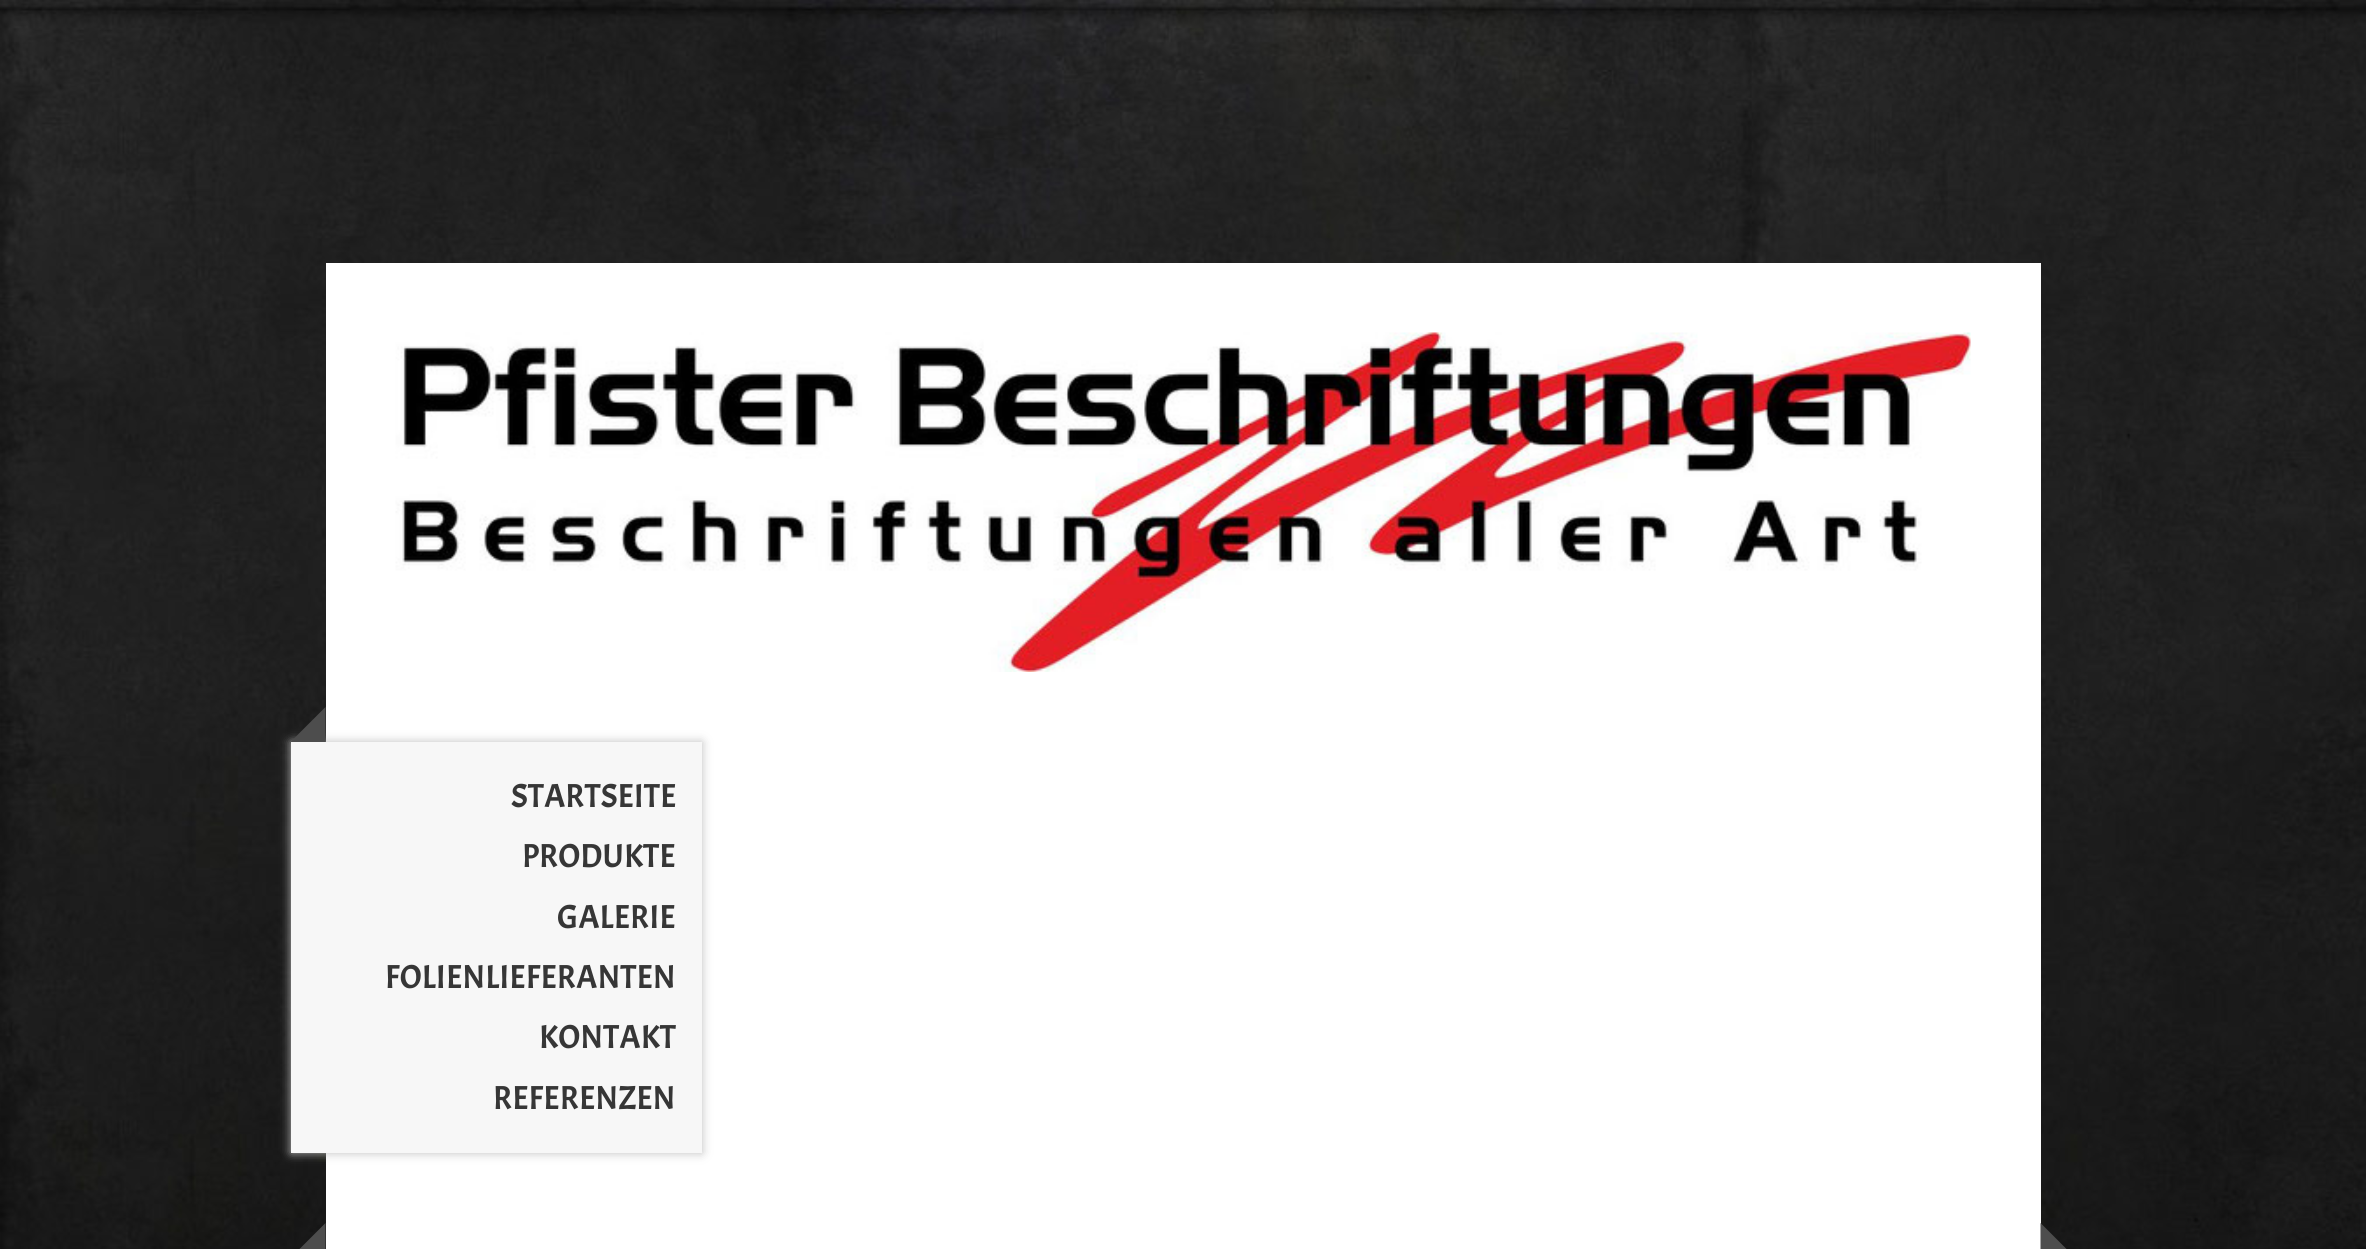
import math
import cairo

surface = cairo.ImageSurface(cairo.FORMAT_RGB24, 2366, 1249)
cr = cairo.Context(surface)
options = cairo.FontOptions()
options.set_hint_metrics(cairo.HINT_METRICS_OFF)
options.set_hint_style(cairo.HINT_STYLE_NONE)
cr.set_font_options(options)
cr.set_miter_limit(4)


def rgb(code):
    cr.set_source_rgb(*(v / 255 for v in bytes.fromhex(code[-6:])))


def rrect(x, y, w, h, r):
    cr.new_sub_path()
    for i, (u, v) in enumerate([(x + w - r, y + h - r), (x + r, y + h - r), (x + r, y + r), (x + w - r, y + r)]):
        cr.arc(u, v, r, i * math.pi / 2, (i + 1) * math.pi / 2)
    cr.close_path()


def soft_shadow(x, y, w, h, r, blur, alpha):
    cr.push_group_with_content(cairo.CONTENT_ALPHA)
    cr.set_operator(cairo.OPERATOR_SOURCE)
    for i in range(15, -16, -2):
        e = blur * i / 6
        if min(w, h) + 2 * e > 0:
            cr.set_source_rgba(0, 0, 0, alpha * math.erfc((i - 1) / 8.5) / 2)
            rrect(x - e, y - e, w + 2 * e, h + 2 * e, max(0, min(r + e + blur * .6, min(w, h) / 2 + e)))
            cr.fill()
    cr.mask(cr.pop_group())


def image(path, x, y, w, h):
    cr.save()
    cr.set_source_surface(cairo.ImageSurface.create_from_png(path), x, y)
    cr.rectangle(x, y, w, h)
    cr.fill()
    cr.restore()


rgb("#ffffff")
cr.paint()
image("img/1.png", 0, 0, 2366, 1249)
rgb("#ffffff")
cr.rectangle(326, 263, 1715, 986)
cr.fill()
image("img/2.png", 395, 332, 1576, 340)
rgb("#bfbfbf")
soft_shadow(291, 742, 411, 411, 0, 5, 1)
rgb("#f7f7f7")
cr.rectangle(291, 742, 411, 411)
cr.fill()
rgb("#4d4d4d")
cr.new_path()
cr.move_to(325.5, 742)
cr.line_to(290.5, 742)
cr.line_to(325.5, 707)
cr.close_path()
cr.fill()
cr.new_path()
cr.move_to(325.5, 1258)
cr.line_to(290.5, 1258)
cr.line_to(325.5, 1223)
cr.close_path()
cr.fill()
cr.new_path()
cr.move_to(2040.5, 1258)
cr.line_to(2040.5, 1223)
cr.line_to(2075.5, 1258)
cr.close_path()
cr.fill()
cr.select_font_face("Acme")
cr.set_font_size(33.25)
rgb("#363636")
for x, y, s in [
    (511, 807, "STARTSEITE"),
    (522, 867, "PRODUKTE"),
    (557, 928, "GALERIE"),
    (385, 988, "FOLIENLIEFERANTEN"),
    (539, 1048, "KONTAKT"),
    (493, 1109, "REFERENZEN"),
]:
    cr.move_to(x, y)
    cr.show_text(s)
surface.write_to_png("page.png")
